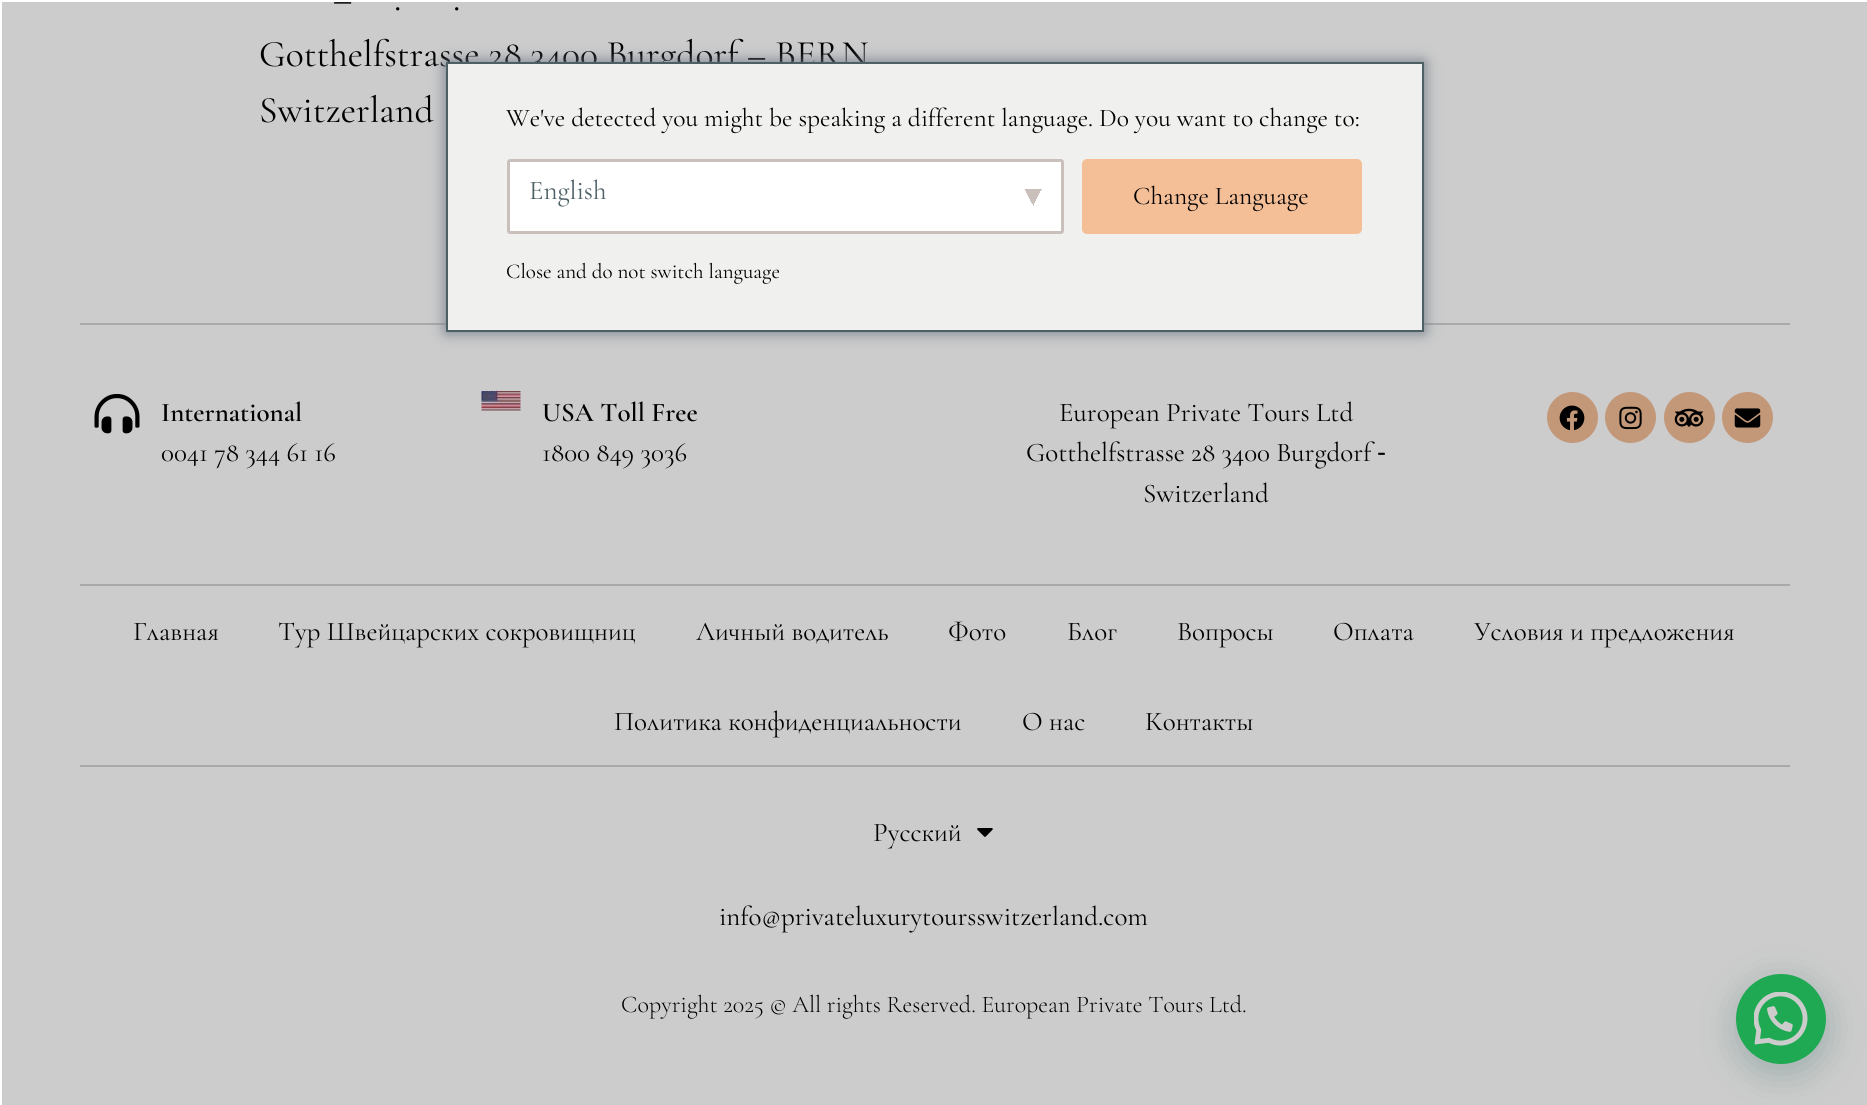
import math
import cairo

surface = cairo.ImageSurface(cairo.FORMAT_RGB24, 1867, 1105)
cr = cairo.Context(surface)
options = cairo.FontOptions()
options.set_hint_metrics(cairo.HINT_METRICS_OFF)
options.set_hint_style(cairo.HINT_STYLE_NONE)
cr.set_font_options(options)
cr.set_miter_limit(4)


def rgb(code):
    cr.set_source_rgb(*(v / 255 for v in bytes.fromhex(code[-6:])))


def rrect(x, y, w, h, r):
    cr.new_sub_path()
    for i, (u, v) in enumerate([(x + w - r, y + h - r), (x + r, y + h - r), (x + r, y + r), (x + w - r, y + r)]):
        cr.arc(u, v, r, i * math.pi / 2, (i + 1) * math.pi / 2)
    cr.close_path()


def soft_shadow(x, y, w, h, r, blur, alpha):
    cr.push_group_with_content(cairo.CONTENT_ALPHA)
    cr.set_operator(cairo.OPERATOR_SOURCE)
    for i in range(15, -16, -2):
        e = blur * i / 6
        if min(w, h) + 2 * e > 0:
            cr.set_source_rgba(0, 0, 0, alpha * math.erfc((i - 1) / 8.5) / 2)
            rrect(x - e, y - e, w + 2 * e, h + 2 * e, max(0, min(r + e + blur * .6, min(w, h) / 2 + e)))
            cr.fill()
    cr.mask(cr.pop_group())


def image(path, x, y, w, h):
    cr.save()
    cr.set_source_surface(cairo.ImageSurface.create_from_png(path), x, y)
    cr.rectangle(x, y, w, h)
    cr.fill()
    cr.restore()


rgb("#ffffff")
cr.paint()
rgb("#d3d3d3")
cr.rectangle(80, 323, 1710, 2)
cr.fill()
image("img/1.png", 94, 393, 46, 41)
image("img/2.png", 481, 391, 40, 20)
rgb("#f4be97")
cr.arc(1572.5, 417.5, 25.5, 0, 2 * math.pi)
cr.fill()
image("img/3.png", 1559, 405, 26, 26)
cr.arc(1630.5, 417.5, 25.5, 0, 2 * math.pi)
cr.fill()
image("img/4.png", 1619, 406, 23, 24)
cr.arc(1689.5, 417.5, 25.5, 0, 2 * math.pi)
cr.fill()
image("img/5.png", 1674, 408, 30, 19)
cr.arc(1747.5, 417.5, 25.5, 0, 2 * math.pi)
cr.fill()
image("img/6.png", 1734, 408, 27, 20)
rgb("#d3d3d3")
cr.rectangle(80, 584, 1710, 2)
cr.fill()
cr.rectangle(80, 765, 1710, 2)
cr.fill()
image("img/7.png", 977, 828, 16, 9)
rgb("#075e54")
soft_shadow(1737, 983, 90, 90, 45, 18, 0.24)
rgb("#25d366")
cr.arc(1781, 1019, 45, 0, 2 * math.pi)
cr.fill()
image("img/8.png", 1754, 992, 54, 54)
cr.select_font_face("Cormorant Garamond")
cr.set_font_size(37.5)
rgb("#000000")
for x, y, s in [
    (333, 10, "–"),
    (394, 10, "."),
    (453, 10, "."),
    (259, 66, "Gotthelfstrasse 28 3400 Burgdorf"),
]:
    cr.move_to(x, y)
    cr.show_text(s)
cr.select_font_face("Cormorant Garamond", cairo.FONT_SLANT_NORMAL, cairo.FONT_WEIGHT_BOLD)
cr.move_to(747, 66)
cr.show_text("–")
cr.select_font_face("Cormorant Garamond")
cr.move_to(775, 66)
cr.show_text("BERN")
cr.move_to(259, 122)
cr.show_text("Switzerland")
cr.select_font_face("Cormorant Garamond SemiBold")
cr.set_font_size(27)
cr.move_to(161, 421)
cr.show_text("International")
cr.select_font_face("Cormorant Garamond")
cr.move_to(161, 461)
cr.show_text("0041 78 344 61 16")
cr.select_font_face("Cormorant Garamond SemiBold")
cr.move_to(542, 421)
cr.show_text("USA Toll Free")
cr.select_font_face("Cormorant Garamond")
for x, y, s in [
    (542, 461, "1800 849 3036"),
    (1059, 421, "European Private Tours Ltd"),
    (1026, 461, "Gotthelfstrasse 28 3400 Burgdorf"),
]:
    cr.move_to(x, y)
    cr.show_text(s)
cr.select_font_face("Liberation Sans")
cr.move_to(1377, 461)
cr.show_text("‐")
cr.select_font_face("Cormorant Garamond")
for x, y, s in [
    (1143, 502, "Switzerland"),
    (133, 640, "Главная"),
    (278, 640, "Тур Швейцарских сокровищниц"),
    (696, 640, "Личный водитель"),
    (948, 640, "Фото"),
    (1067, 640, "Блог"),
    (1177, 640, "Вопросы"),
    (1333, 640, "Оплата"),
    (1474, 640, "Условия и предложения"),
    (614, 730, "Политика конфиденциальности"),
    (1022, 730, "О нас"),
    (1145, 730, "Контакты"),
    (873, 841, "Русский"),
    (719, 925, "info@privateluxurytoursswitzerland.com"),
]:
    cr.move_to(x, y)
    cr.show_text(s)
cr.select_font_face("Cormorant Garamond Light")
cr.set_font_size(24)
cr.move_to(621, 1012)
cr.show_text("Copyright 2025 © All rights Reserved. European Private Tours Ltd.")
cr.set_source_rgba(0, 0, 0, 0.2)
cr.rectangle(2, 2, 1865, 1103)
cr.fill()
rgb("#6c7781")
soft_shadow(446, 62, 978, 270, 0, 7.5, 1)
rgb("#f0f0ee")
cr.rectangle(447, 63, 976, 268)
cr.fill_preserve()
rgb("#4c6066")
cr.stroke()
rgb("#ffffff")
rrect(507, 159, 557, 75, 3)
cr.fill()
gradient = cairo.LinearGradient(1021, 201, 1036, 193)
gradient.add_color_stop_rgba(0.5, 1, 1, 1, 1)
gradient.add_color_stop_rgba(0.5, 0.788, 0.753, 0.733, 1)
cr.set_source(gradient)
cr.rectangle(1025, 189, 9, 17)
cr.fill()
gradient = cairo.LinearGradient(1030, 193, 1045, 201)
gradient.add_color_stop_rgba(0.5, 0.788, 0.753, 0.733, 1)
gradient.add_color_stop_rgba(0.5, 1, 1, 1, 1)
cr.set_source(gradient)
cr.rectangle(1034, 189, 8, 14)
cr.fill()
rrect(508.5, 160.5, 554, 72, 1.5)
rgb("#c9c0bb")
cr.set_line_width(3)
cr.stroke()
cr.select_font_face("Cormorant Garamond")
cr.set_font_size(27)
rgb("#4c6066")
cr.move_to(529, 199)
cr.show_text("English")
cr.set_font_size(21)
rgb("#000000")
cr.move_to(506, 278)
cr.show_text("Close and do not switch language")
rgb("#f4be97")
rrect(1083, 160, 278, 73, 4)
cr.fill_preserve()
cr.set_line_width(2)
cr.stroke()
cr.set_font_size(25.5)
rgb("#000000")
cr.move_to(1133, 204)
cr.show_text("Change Language")
cr.move_to(506, 126)
cr.show_text("We've detected you might be speaking a different language. Do you want to change to:")
surface.write_to_png("page.png")
